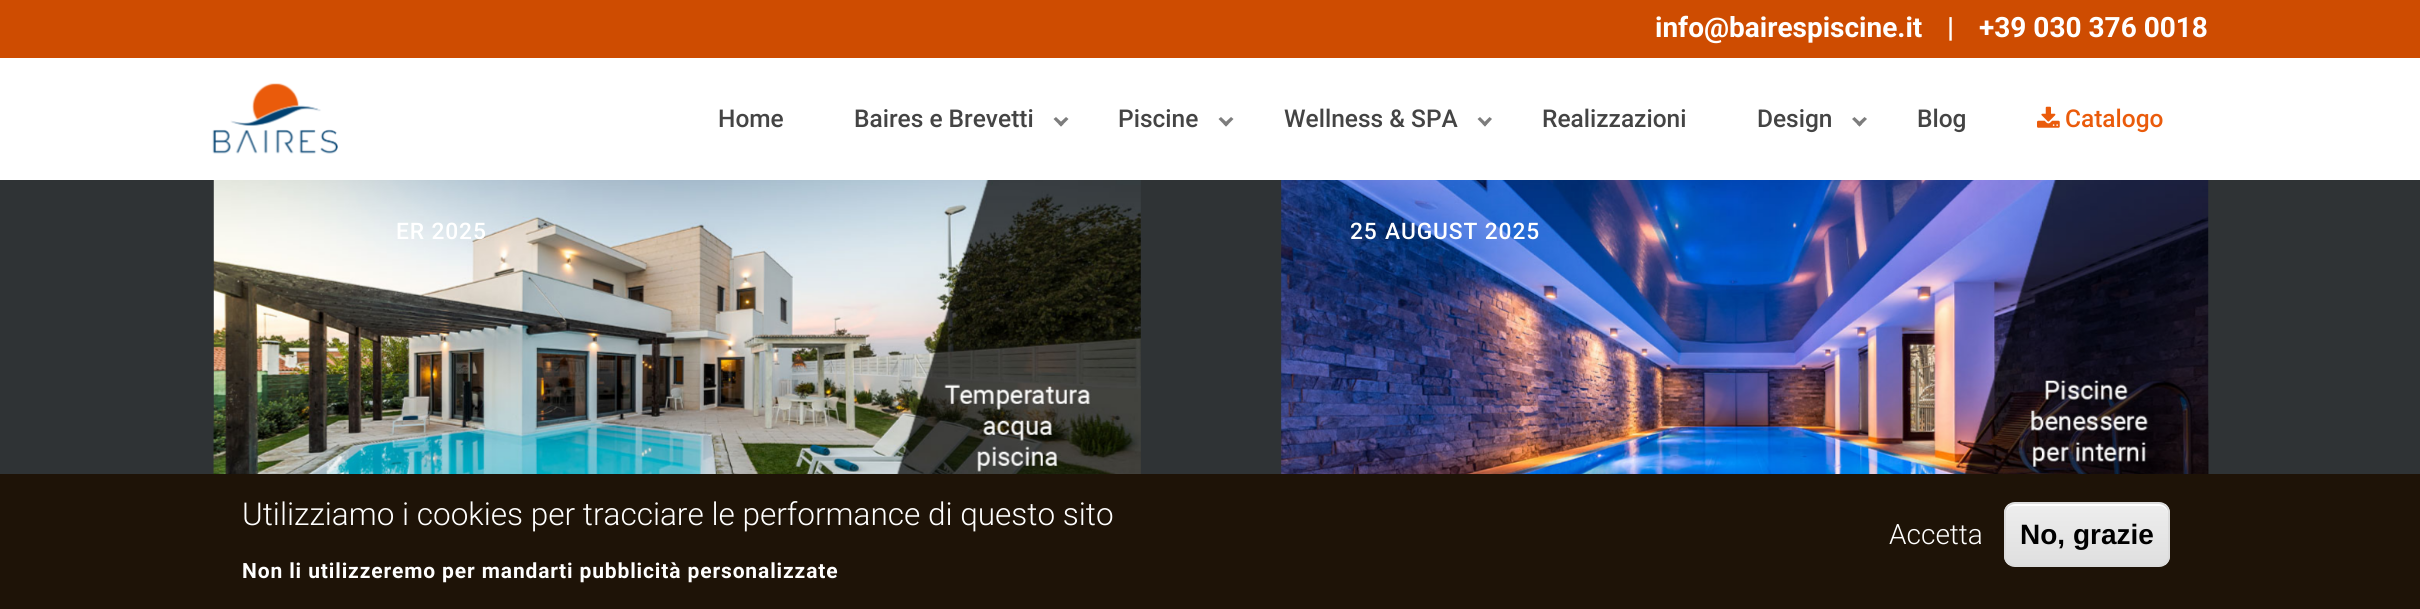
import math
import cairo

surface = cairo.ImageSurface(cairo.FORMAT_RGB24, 2420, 609)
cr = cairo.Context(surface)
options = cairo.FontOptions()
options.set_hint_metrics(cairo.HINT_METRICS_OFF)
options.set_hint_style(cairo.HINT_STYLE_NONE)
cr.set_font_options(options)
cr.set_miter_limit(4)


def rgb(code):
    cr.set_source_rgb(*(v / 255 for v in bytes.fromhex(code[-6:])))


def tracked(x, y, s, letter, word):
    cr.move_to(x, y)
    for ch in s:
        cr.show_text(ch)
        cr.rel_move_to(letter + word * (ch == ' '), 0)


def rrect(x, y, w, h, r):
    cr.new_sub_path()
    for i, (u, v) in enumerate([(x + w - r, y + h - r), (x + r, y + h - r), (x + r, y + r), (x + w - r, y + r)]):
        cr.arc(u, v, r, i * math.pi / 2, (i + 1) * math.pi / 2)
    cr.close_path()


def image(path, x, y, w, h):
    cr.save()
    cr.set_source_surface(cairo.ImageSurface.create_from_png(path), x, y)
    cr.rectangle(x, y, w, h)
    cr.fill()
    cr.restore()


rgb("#2f3335")
cr.paint()
rgb("#ffffff")
cr.rectangle(0, 58, 2420, 122)
cr.fill()
rgb("#ce4c01")
cr.rectangle(0, 0, 2420, 58)
cr.fill()
image("img/1.png", 212, 83, 126, 71)
rgb("#7d7d7d")
cr.new_path()
cr.move_to(1068.5, 119)
cr.line_to(1061, 126.5)
cr.line_to(1058.5, 124)
cr.line_to(1066, 117)
cr.close_path()
cr.fill()
cr.new_path()
cr.move_to(1063.5, 124)
cr.line_to(1061, 126.5)
cr.line_to(1053.5, 119)
cr.line_to(1056, 117)
cr.close_path()
cr.fill()
cr.new_path()
cr.move_to(1233.5, 119)
cr.line_to(1226, 126.5)
cr.line_to(1223.5, 124)
cr.line_to(1231, 117)
cr.close_path()
cr.fill()
cr.new_path()
cr.move_to(1228.5, 124)
cr.line_to(1226, 126.5)
cr.line_to(1218.5, 119)
cr.line_to(1221, 117)
cr.close_path()
cr.fill()
cr.new_path()
cr.move_to(1492, 119)
cr.line_to(1485, 126.5)
cr.line_to(1482.5, 124)
cr.line_to(1489.5, 117)
cr.close_path()
cr.fill()
cr.new_path()
cr.move_to(1487, 124)
cr.line_to(1485, 126.5)
cr.line_to(1477.5, 119)
cr.line_to(1480, 117)
cr.close_path()
cr.fill()
cr.new_path()
cr.move_to(1867, 119)
cr.line_to(1859.5, 126.5)
cr.line_to(1857, 124)
cr.line_to(1864.5, 117)
cr.close_path()
cr.fill()
cr.new_path()
cr.move_to(1862, 124)
cr.line_to(1859.5, 126.5)
cr.line_to(1852, 119)
cr.line_to(1854.5, 117)
cr.close_path()
cr.fill()
image("img/2.png", 2037, 106, 23, 22)
image("img/3.png", 213, 180, 928, 294)
image("img/4.png", 1281, 180, 928, 294)
rgb("#1e1307")
cr.rectangle(0, 474, 2420, 135)
cr.fill()
cr.save()
rrect(2004, 502, 166, 65, 11)
cr.clip()
gradient = cairo.LinearGradient(2087, 504, 2087, 565)
gradient.add_color_stop_rgba(0.05, 0.929, 0.929, 0.929, 1)
gradient.add_color_stop_rgba(1, 0.875, 0.875, 0.875, 1)
cr.set_source(gradient)
cr.rectangle(2004, 504, 166, 61)
cr.fill()
cr.restore()
rgb("#ffffff")
cr.new_path()
cr.move_to(2014, 506)
cr.line_to(2160, 506)
cr.curve_to(2164, 506, 2168, 510, 2168, 514)
cr.line_to(2168, 513)
cr.curve_to(2168, 508, 2164, 504, 2159, 504)
cr.line_to(2015, 504)
cr.curve_to(2010, 504, 2006, 508, 2006, 513)
cr.line_to(2006, 514)
cr.curve_to(2006, 510, 2009, 506, 2014, 506)
cr.close_path()
cr.fill()
rrect(2005, 503, 164, 63, 10)
rgb("#dcdcdc")
cr.stroke()
cr.select_font_face("Roboto", cairo.FONT_SLANT_NORMAL, cairo.FONT_WEIGHT_BOLD)
cr.set_font_size(28)
rgb("#ffffff")
for x, y, s in [
    (1655, 37, "info@bairespiscine.it"),
    (1947, 37, "|"),
    (1979, 37, "+39 030 376 0018"),
]:
    cr.move_to(x, y)
    cr.show_text(s)
cr.select_font_face("Roboto Medium")
cr.set_font_size(24.5)
rgb("#444444")
for x, y, s in [
    (718, 127, "Home"),
    (854, 127, "Baires e Brevetti"),
    (1118, 127, "Piscine"),
    (1284, 127, "Wellness & SPA"),
    (1542, 127, "Realizzazioni"),
    (1757, 127, "Design"),
    (1917, 127, "Blog"),
]:
    cr.move_to(x, y)
    cr.show_text(s)
rgb("#ea5b0b")
cr.move_to(2065, 127)
cr.show_text("Catalogo")
cr.set_font_size(22.75)
rgb("#ffffff")
for x, y, s in [
    (396, 239, "ER 2025"),
    (1350, 239, "25"),
    (1385, 239, "AUGUST 2025"),
]:
    tracked(x, y, s, 0.88, 0)
cr.select_font_face("Roboto Light")
cr.set_font_size(31.5)
cr.move_to(242, 525)
cr.show_text("Utilizziamo i cookies per tracciare le performance di questo sito")
cr.select_font_face("Roboto", cairo.FONT_SLANT_NORMAL, cairo.FONT_WEIGHT_BOLD)
cr.set_font_size(21)
tracked(242, 578, "Non li utilizzeremo per mandarti pubblicità personalizzate", 0.88, 0)
cr.select_font_face("Roboto Light")
cr.set_font_size(28)
cr.move_to(1889, 544)
cr.show_text("Accetta")
cr.select_font_face("Liberation Sans", cairo.FONT_SLANT_NORMAL, cairo.FONT_WEIGHT_BOLD)
rgb("#000000")
cr.move_to(2020, 544)
cr.show_text("No, grazie")
surface.write_to_png("page.png")
